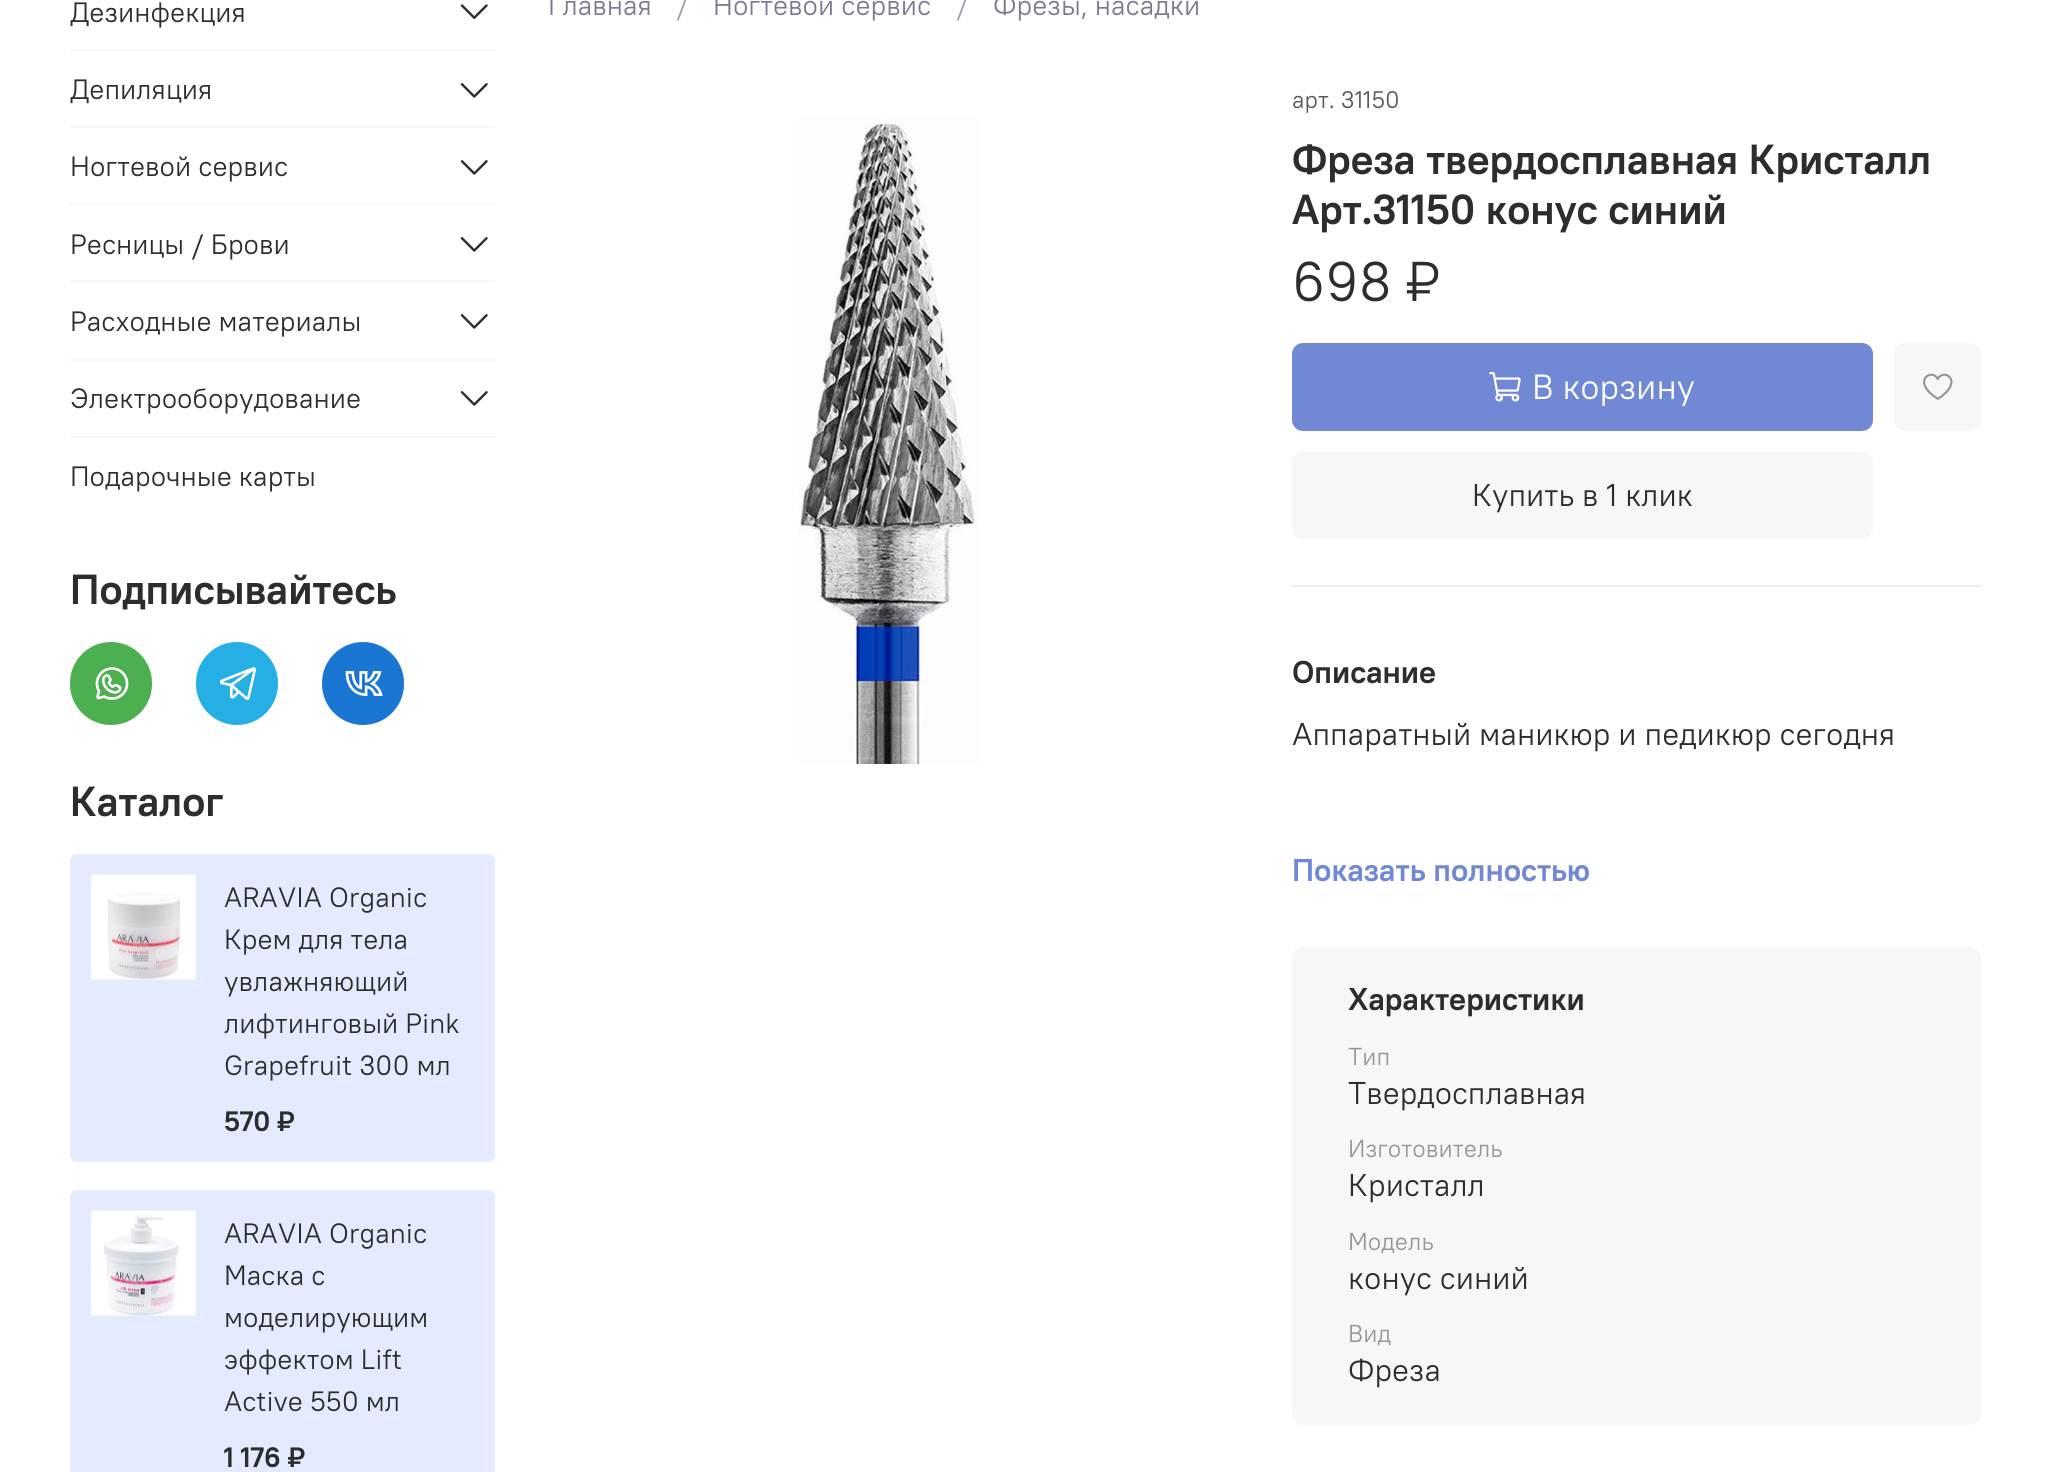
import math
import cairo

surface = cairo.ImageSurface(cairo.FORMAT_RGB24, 2051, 1472)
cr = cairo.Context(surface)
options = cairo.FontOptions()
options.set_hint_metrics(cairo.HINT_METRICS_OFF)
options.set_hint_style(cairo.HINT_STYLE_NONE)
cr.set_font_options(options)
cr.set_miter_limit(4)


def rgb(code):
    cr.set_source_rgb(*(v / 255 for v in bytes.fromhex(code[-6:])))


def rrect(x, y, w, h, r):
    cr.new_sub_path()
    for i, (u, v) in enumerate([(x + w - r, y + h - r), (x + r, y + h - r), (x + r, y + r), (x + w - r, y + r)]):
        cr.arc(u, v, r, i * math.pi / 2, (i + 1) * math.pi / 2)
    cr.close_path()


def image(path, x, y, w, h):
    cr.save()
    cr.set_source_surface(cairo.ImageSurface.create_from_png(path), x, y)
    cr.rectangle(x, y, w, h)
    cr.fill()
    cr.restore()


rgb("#ffffff")
cr.paint()
rgb("#f7f7f7")
cr.rectangle(70, 49, 425, 2)
cr.fill()
image("img/1.png", 460, 4, 28, 15)
cr.rectangle(70, 126, 425, 2)
cr.fill()
image("img/2.png", 460, 83, 28, 15)
cr.rectangle(70, 203, 425, 2)
cr.fill()
image("img/2.png", 460, 160, 28, 15)
cr.rectangle(70, 280, 425, 2)
cr.fill()
image("img/2.png", 460, 237, 28, 15)
cr.rectangle(70, 359, 425, 2)
cr.fill()
image("img/2.png", 460, 314, 28, 15)
cr.rectangle(70, 436, 425, 2)
cr.fill()
image("img/2.png", 460, 391, 28, 15)
rgb("#4caf50")
rrect(70, 642, 82, 83, 41)
cr.fill()
image("img/3.png", 95, 667, 34, 33)
rgb("#26afe5")
rrect(196, 642, 82, 83, 41)
cr.fill()
image("img/4.png", 220, 667, 36, 33)
rgb("#1976d2")
rrect(322, 642, 82, 83, 41)
cr.fill()
image("img/5.png", 345, 671, 38, 26)
rgb("#e5ebff")
rrect(70, 854, 425, 308, 7)
cr.fill()
image("img/6.png", 91, 874, 105, 106)
rrect(70, 1190, 425, 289, 7)
cr.fill()
image("img/7.png", 91, 1210, 105, 106)
image("img/8.png", 799, 118, 180, 646)
rgb("#7188d4")
rrect(1292, 343, 581, 88, 11)
cr.fill()
image("img/9.png", 1489, 372, 32, 30)
rgb("#f7f7f7")
rrect(1292, 452, 581, 87, 11)
cr.fill()
rrect(1894, 343, 87, 88, 11)
cr.fill()
image("img/10.png", 1923, 373, 30, 27)
rgb("#ededed")
cr.rectangle(1292, 585, 689, 2)
cr.fill()
rgb("#f7f7f7")
rrect(1292, 947, 689, 478, 11)
cr.fill()
cr.select_font_face("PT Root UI")
cr.set_font_size(28)
rgb("#2d2d2d")
for x, y, s in [
    (70, 22, "Дезинфекция"),
    (70, 99, "Депиляция"),
    (70, 176, "Ногтевой сервис"),
    (70, 254, "Ресницы / Брови"),
    (70, 331, "Расходные материалы"),
    (70, 408, "Электрооборудование"),
    (70, 486, "Подарочные карты"),
]:
    cr.move_to(x, y)
    cr.show_text(s)
cr.select_font_face("PT Root UI", cairo.FONT_SLANT_NORMAL, cairo.FONT_WEIGHT_BOLD)
cr.set_font_size(42)
cr.move_to(70, 604)
cr.show_text("Подписывайтесь")
cr.move_to(70, 816)
cr.show_text("Каталог")
cr.select_font_face("PT Root UI")
cr.set_font_size(28)
for x, y, s in [
    (224, 907, "ARAVIA Organic"),
    (224, 949, "Крем для тела"),
    (224, 991, "увлажняющий"),
    (224, 1033, "лифтинговый Pink"),
    (224, 1075, "Grapefruit 300 мл"),
]:
    cr.move_to(x, y)
    cr.show_text(s)
cr.select_font_face("PT Root UI", cairo.FONT_SLANT_NORMAL, cairo.FONT_WEIGHT_BOLD)
cr.move_to(224, 1131)
cr.show_text("570 ₽")
cr.select_font_face("PT Root UI")
for x, y, s in [
    (224, 1243, "ARAVIA Organic"),
    (224, 1285, "Маска с"),
    (224, 1327, "моделирующим"),
    (224, 1369, "эффектом Lift"),
    (224, 1411, "Active 550 мл"),
]:
    cr.move_to(x, y)
    cr.show_text(s)
cr.select_font_face("PT Root UI", cairo.FONT_SLANT_NORMAL, cairo.FONT_WEIGHT_BOLD)
cr.move_to(224, 1467)
cr.show_text("1 176 ₽")
cr.select_font_face("PT Root UI")
rgb("#757c8e")
cr.move_to(548, 15)
cr.show_text("Главная")
rgb("#9ea3b0")
cr.move_to(676, 15)
cr.show_text("/")
rgb("#757c8e")
cr.move_to(713, 15)
cr.show_text("Ногтевой сервис")
rgb("#9ea3b0")
cr.move_to(956, 15)
cr.show_text("/")
rgb("#757c8e")
cr.move_to(993, 15)
cr.show_text("Фрезы, насадки")
cr.set_font_size(24)
rgb("#585858")
cr.move_to(1292, 108)
cr.show_text("арт. 31150")
cr.select_font_face("PT Root UI", cairo.FONT_SLANT_NORMAL, cairo.FONT_WEIGHT_BOLD)
cr.set_font_size(42)
rgb("#2d2d2d")
cr.move_to(1292, 174)
cr.show_text("Фреза твердосплавная Кристалл")
cr.move_to(1292, 224)
cr.show_text("Арт.31150 конус синий")
cr.select_font_face("PT Root UI")
cr.set_font_size(56)
cr.move_to(1292, 301)
cr.show_text("698 ₽")
cr.set_font_size(35)
rgb("#ffffff")
cr.move_to(1532, 399)
cr.show_text("В корзину")
cr.set_font_size(31.5)
rgb("#2d2d2d")
cr.move_to(1472, 506)
cr.show_text("Купить в 1 клик")
cr.select_font_face("PT Root UI", cairo.FONT_SLANT_NORMAL, cairo.FONT_WEIGHT_BOLD)
cr.move_to(1292, 683)
cr.show_text("Описание")
cr.select_font_face("PT Root UI")
cr.move_to(1292, 745)
cr.show_text("Аппаратный маникюр и педикюр сегодня")
cr.select_font_face("PT Root UI", cairo.FONT_SLANT_NORMAL, cairo.FONT_WEIGHT_BOLD)
rgb("#7188d4")
cr.move_to(1292, 881)
cr.show_text("Показать полностью")
rgb("#2d2d2d")
cr.move_to(1348, 1010)
cr.show_text("Характеристики")
cr.select_font_face("PT Root UI")
cr.set_font_size(24.5)
rgb("#969696")
cr.move_to(1348, 1065)
cr.show_text("Тип")
cr.set_font_size(31.5)
rgb("#2d2d2d")
cr.move_to(1348, 1104)
cr.show_text("Твердосплавная")
cr.set_font_size(24.5)
rgb("#969696")
cr.move_to(1348, 1157)
cr.show_text("Изготовитель")
cr.set_font_size(31.5)
rgb("#2d2d2d")
cr.move_to(1348, 1196)
cr.show_text("Кристалл")
cr.set_font_size(24.5)
rgb("#969696")
cr.move_to(1348, 1250)
cr.show_text("Модель")
cr.set_font_size(31.5)
rgb("#2d2d2d")
cr.move_to(1348, 1289)
cr.show_text("конус синий")
cr.set_font_size(24.5)
rgb("#969696")
cr.move_to(1348, 1342)
cr.show_text("Вид")
cr.set_font_size(31.5)
rgb("#2d2d2d")
cr.move_to(1348, 1381)
cr.show_text("Фреза")
surface.write_to_png("page.png")
